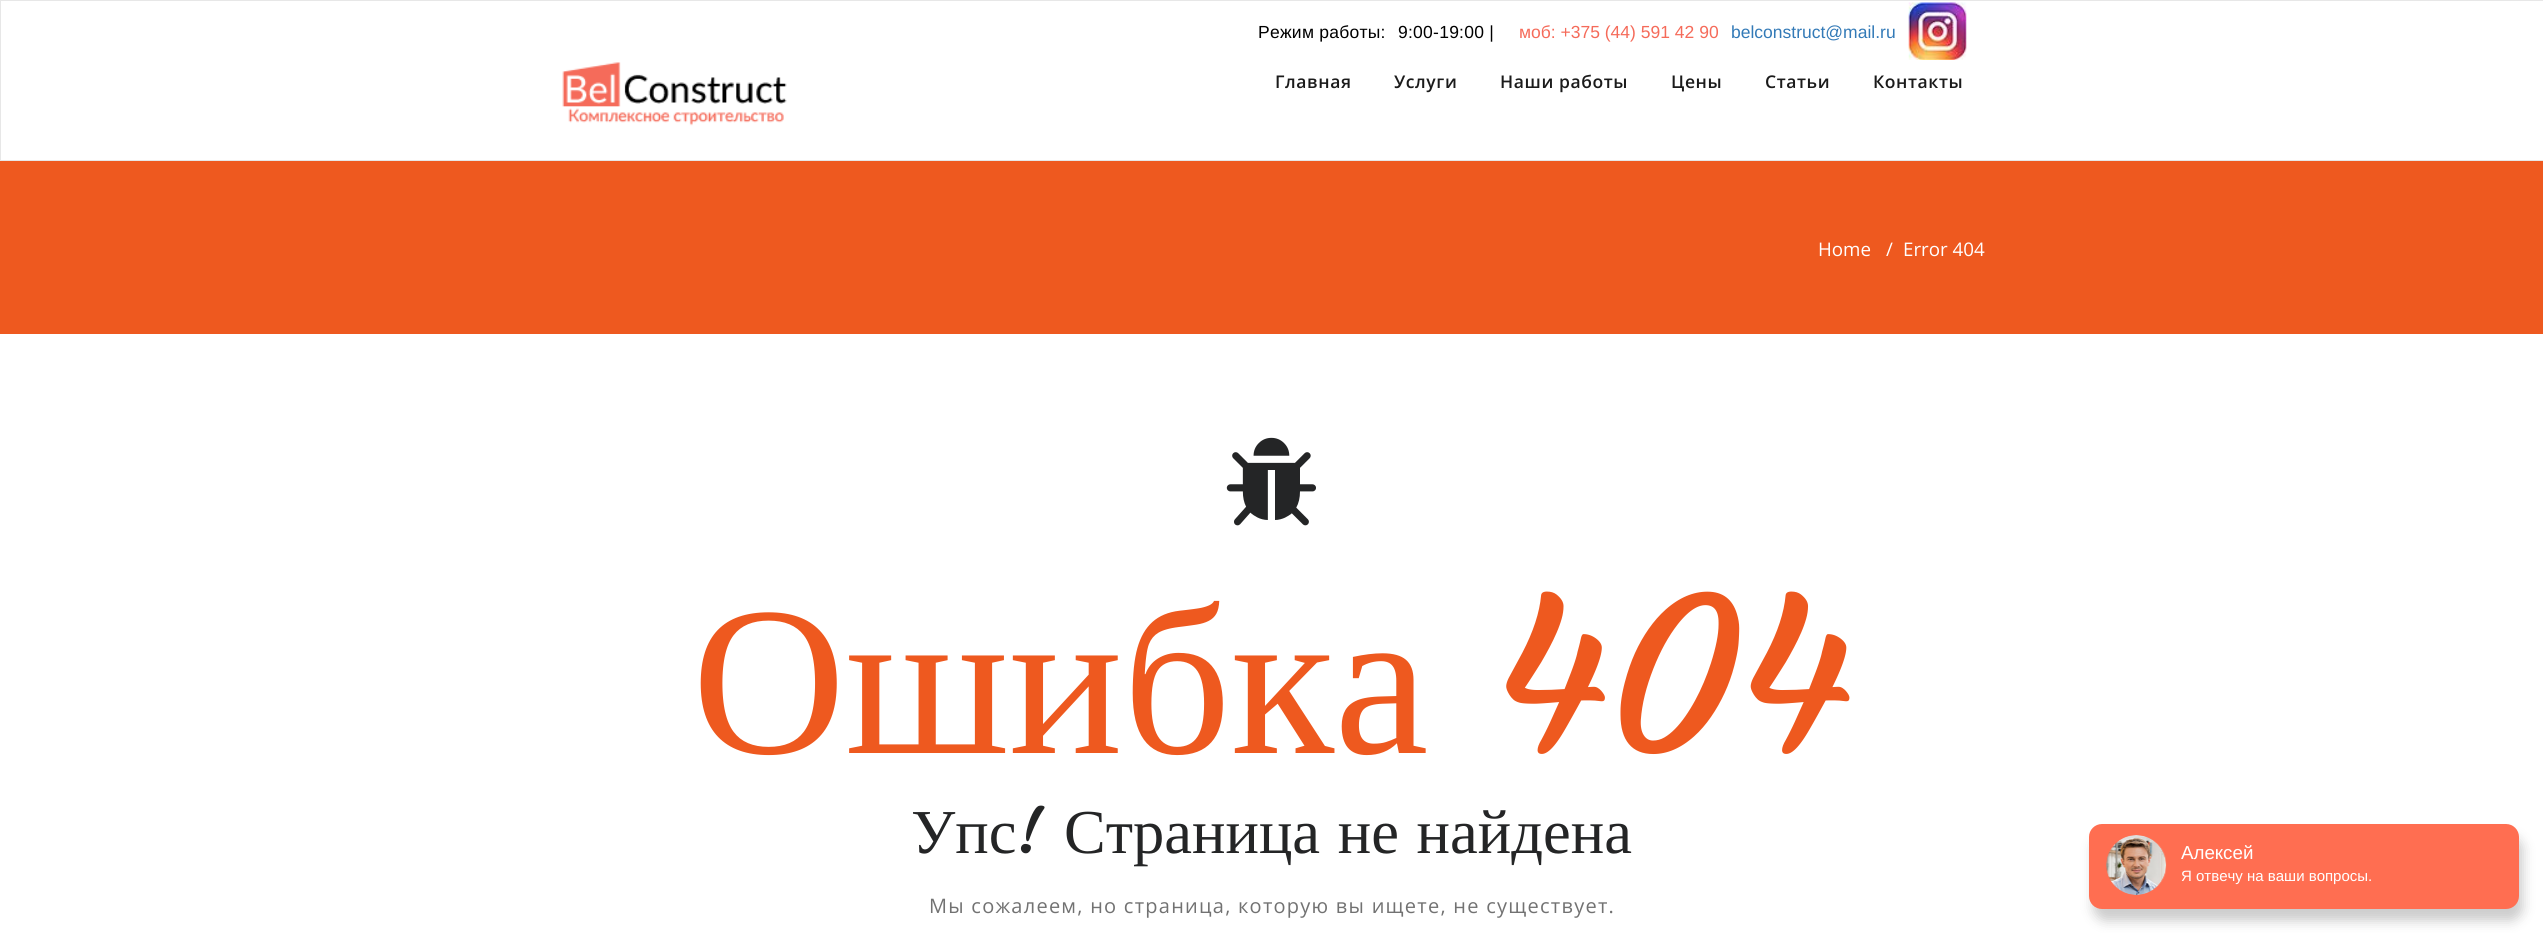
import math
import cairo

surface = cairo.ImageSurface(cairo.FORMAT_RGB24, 2543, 933)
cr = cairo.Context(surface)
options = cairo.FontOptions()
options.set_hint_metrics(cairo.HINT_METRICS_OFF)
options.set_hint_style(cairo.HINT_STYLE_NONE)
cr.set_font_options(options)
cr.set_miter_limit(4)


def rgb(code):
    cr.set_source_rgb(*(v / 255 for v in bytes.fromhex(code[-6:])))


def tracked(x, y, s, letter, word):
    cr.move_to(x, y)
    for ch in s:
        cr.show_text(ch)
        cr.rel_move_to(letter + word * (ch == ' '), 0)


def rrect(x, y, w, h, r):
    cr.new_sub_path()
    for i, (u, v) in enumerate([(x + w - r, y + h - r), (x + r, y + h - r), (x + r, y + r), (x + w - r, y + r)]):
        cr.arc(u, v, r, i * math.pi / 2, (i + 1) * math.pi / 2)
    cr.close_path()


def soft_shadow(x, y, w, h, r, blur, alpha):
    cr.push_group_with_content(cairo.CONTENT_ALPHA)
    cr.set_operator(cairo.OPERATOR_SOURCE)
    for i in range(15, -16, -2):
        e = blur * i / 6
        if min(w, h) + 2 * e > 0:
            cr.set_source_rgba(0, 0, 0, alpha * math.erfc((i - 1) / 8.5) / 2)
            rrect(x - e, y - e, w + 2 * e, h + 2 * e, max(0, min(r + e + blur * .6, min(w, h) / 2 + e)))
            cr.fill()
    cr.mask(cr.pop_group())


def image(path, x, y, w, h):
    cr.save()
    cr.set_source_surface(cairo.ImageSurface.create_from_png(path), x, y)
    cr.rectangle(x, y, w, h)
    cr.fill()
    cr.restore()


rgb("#ffffff")
cr.paint()
cr.rectangle(0.5, 0.5, 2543, 160)
rgb("#e7e7e7")
cr.set_line_width(1)
cr.stroke()
image("img/1.png", 1908, 2, 59, 58)
image("img/2.png", 562, 62, 225, 64)
rgb("#ee591f")
cr.rectangle(0, 161, 2543, 173)
cr.fill()
image("img/3.png", 1226, 437, 90, 89)
rgb("#000000")
soft_shadow(2093, 836, 430, 85, 13, 6, 0.2)
rgb("#ff6e51")
rrect(2089, 824, 430, 85, 13)
cr.fill()
image("img/4.png", 2106, 835, 61, 60)
cr.select_font_face("Liberation Sans")
cr.set_font_size(17.5)
rgb("#000000")
tracked(1258, 38, "Режим работы:", 0.25, 0)
tracked(1398, 38, "9:00-19:00 |", 0.25, 0)
rgb("#f56b5a")
cr.move_to(1519, 38)
cr.show_text("моб: +375 (44) 591 42 90")
rgb("#337ab7")
cr.move_to(1731, 38)
cr.show_text("belconstruct@mail.ru")
cr.select_font_face("Open Sans SemiBold")
rgb("#1b1b1b")
for x, y, s in [
    (1275, 88, "Главная"),
    (1394, 88, "Услуги"),
    (1500, 88, "Наши работы"),
    (1671, 88, "Цены"),
    (1765, 88, "Статьи"),
    (1873, 88, "Контакты"),
]:
    tracked(x, y, s, 0.6, 0)
cr.select_font_face("Open Sans")
cr.set_font_size(18.75)
rgb("#ffffff")
for x, y, s in [
    (1818, 256, "Home"),
    (1886, 256, "/"),
    (1903, 256, "Error 404"),
]:
    cr.move_to(x, y)
    cr.show_text(s)
cr.select_font_face("Liberation Serif")
cr.set_font_size(212.5)
rgb("#ee591f")
cr.move_to(692, 753)
cr.show_text("Ошибка")
cr.select_font_face("Courgette")
cr.move_to(1494, 753)
cr.show_text("404")
cr.select_font_face("Liberation Serif")
cr.set_font_size(62.5)
rgb("#242526")
cr.move_to(911, 853)
cr.show_text("Упс")
cr.select_font_face("Courgette")
cr.move_to(1016, 853)
cr.show_text("!")
cr.select_font_face("Liberation Serif")
tracked(1064, 853, "Страница не найдена", 0, 2)
cr.select_font_face("Open Sans")
cr.set_font_size(20)
rgb("#727272")
tracked(929, 913, "Мы сожалеем, но страница, которую вы ищете, не существует.", 1.25, 0)
cr.select_font_face("Liberation Sans")
cr.set_font_size(18.75)
rgb("#ffffff")
cr.move_to(2181, 859)
cr.show_text("Алексей")
cr.set_font_size(15)
cr.move_to(2181, 881)
cr.show_text("Я отвечу на ваши вопросы.")
surface.write_to_png("page.png")
